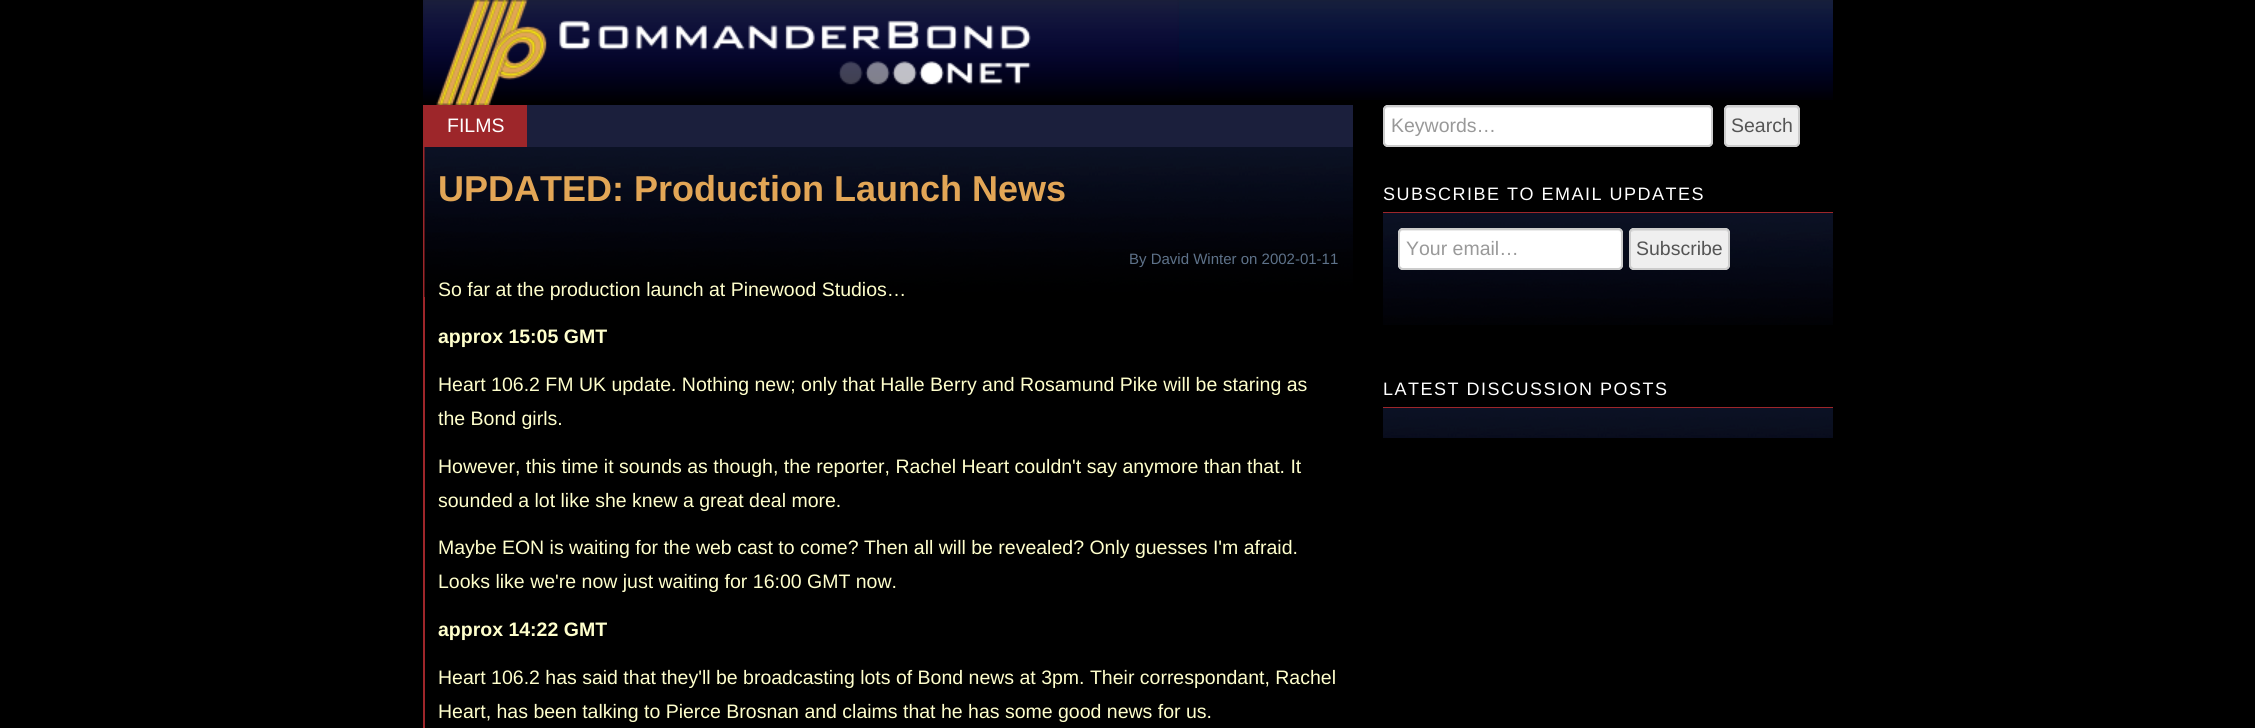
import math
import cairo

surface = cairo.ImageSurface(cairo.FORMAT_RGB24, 2255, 728)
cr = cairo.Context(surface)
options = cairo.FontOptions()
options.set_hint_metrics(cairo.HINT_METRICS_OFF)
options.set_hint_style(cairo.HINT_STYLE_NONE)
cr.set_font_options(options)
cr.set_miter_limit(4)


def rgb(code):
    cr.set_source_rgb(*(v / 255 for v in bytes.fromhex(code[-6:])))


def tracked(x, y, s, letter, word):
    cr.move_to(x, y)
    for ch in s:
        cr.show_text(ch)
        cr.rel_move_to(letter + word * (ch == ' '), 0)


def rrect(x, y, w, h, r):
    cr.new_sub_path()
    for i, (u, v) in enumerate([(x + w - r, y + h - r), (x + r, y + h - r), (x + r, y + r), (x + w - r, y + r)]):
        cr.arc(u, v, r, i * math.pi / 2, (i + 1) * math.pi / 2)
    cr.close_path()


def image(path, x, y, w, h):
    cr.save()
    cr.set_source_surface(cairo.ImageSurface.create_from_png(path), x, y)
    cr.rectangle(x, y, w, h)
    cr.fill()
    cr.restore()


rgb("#000000")
cr.paint()
image("img/1.png", 1179, 0, 654, 100)
image("img/2.png", 423, 0, 756, 105)
for x, y, w, h, color in [
    (423, 105, 2, 623, "#9d262a"),
    (527, 105, 826, 42, "#1b1f3c"),
    (425, 105, 102, 42, "#9d262a"),
]:
    rgb(color)
    cr.rectangle(x, y, w, h)
    cr.fill()
image("img/3.png", 424, 147, 929, 150)
rgb("#ffffff")
rrect(1383, 105, 330, 42, 5)
cr.fill()
rgb("#ececec")
cr.new_path()
cr.move_to(1388, 108)
cr.line_to(1708, 108)
cr.curve_to(1710, 108, 1712, 109, 1712, 111)
cr.line_to(1712, 110)
cr.curve_to(1712, 108, 1711, 107, 1709, 107)
cr.line_to(1388, 107)
cr.curve_to(1387, 107, 1386, 108, 1385, 109)
cr.close_path()
cr.fill()
rrect(1384, 106, 328, 40, 4)
rgb("#cccccc")
cr.stroke()
rgb("#efefef")
rrect(1724, 105, 76, 42, 5)
cr.fill()
rgb("#dddddd")
cr.new_path()
cr.move_to(1728, 108)
cr.line_to(1796, 108)
cr.curve_to(1800, 108, 1798, 121, 1798, 122)
cr.line_to(1798, 145)
cr.curve_to(1799, 145, 1799, 144, 1799, 143)
cr.line_to(1799, 110)
cr.curve_to(1799, 108, 1798, 107, 1796, 107)
cr.line_to(1728, 107)
cr.curve_to(1726, 107, 1725, 108, 1725, 110)
cr.line_to(1725, 111)
cr.curve_to(1725, 109, 1726, 108, 1728, 108)
cr.close_path()
cr.fill()
rrect(1725, 106, 74, 40, 4)
rgb("#cccccc")
cr.stroke()
rgb("#9d262a")
cr.rectangle(1383, 212, 450, 1)
cr.fill()
image("img/4.png", 1383, 213, 450, 112)
rgb("#ffffff")
rrect(1398, 228, 225, 42, 5)
cr.fill()
rgb("#ececec")
cr.new_path()
cr.move_to(1402, 231)
cr.line_to(1618, 231)
cr.curve_to(1620, 231, 1622, 232, 1622, 234)
cr.line_to(1622, 233)
cr.curve_to(1622, 231, 1621, 230, 1619, 230)
cr.line_to(1403, 230)
cr.curve_to(1401, 230, 1400, 231, 1400, 233)
cr.line_to(1400, 234)
cr.curve_to(1400, 232, 1401, 231, 1402, 231)
cr.close_path()
cr.fill()
rrect(1399, 229, 223, 40, 4)
rgb("#cccccc")
cr.stroke()
rgb("#efefef")
rrect(1629, 228, 101, 42, 5)
cr.fill()
rgb("#dddddd")
cr.new_path()
cr.move_to(1634, 231)
cr.line_to(1725, 231)
cr.curve_to(1727, 231, 1728, 232, 1728, 234)
cr.curve_to(1728, 226, 1713, 230, 1710, 230)
cr.line_to(1633, 230)
cr.line_to(1631, 232)
cr.close_path()
cr.fill()
rrect(1630, 229, 99, 40, 4)
rgb("#cccccc")
cr.stroke()
rgb("#9d262a")
cr.rectangle(1383, 407, 450, 1)
cr.fill()
image("img/5.png", 1383, 408, 450, 30)
cr.select_font_face("Liberation Sans")
cr.set_font_size(19.5)
rgb("#ffffff")
cr.move_to(447, 132)
cr.show_text("FILMS")
cr.select_font_face("Liberation Sans", cairo.FONT_SLANT_NORMAL, cairo.FONT_WEIGHT_BOLD)
cr.set_font_size(36)
rgb("#e2a656")
cr.move_to(438, 201)
cr.show_text("UPDATED: Production Launch News")
cr.select_font_face("Liberation Sans")
cr.set_font_size(15)
rgb("#5e728a")
cr.move_to(1129, 264)
cr.show_text("By David Winter on 2002-01-11")
cr.set_font_size(19.5)
rgb("#ffffcc")
cr.move_to(438, 296)
cr.show_text("So far at the production launch at Pinewood Studios…")
cr.select_font_face("Liberation Sans", cairo.FONT_SLANT_NORMAL, cairo.FONT_WEIGHT_BOLD)
cr.move_to(438, 343)
cr.show_text("approx 15:05 GMT")
cr.select_font_face("Liberation Sans")
for x, y, s in [
    (438, 391, "Heart 106.2 FM UK update. Nothing new; only that Halle Berry and Rosamund Pike will be staring as"),
    (438, 425, "the Bond girls."),
    (438, 473, "However, this time it sounds as though, the reporter, Rachel Heart couldn't say anymore than that. It"),
    (438, 507, "sounded a lot like she knew a great deal more."),
    (438, 554, "Maybe EON is waiting for the web cast to come? Then all will be revealed? Only guesses I'm afraid."),
    (438, 588, "Looks like we're now just waiting for 16:00 GMT now."),
]:
    cr.move_to(x, y)
    cr.show_text(s)
cr.select_font_face("Liberation Sans", cairo.FONT_SLANT_NORMAL, cairo.FONT_WEIGHT_BOLD)
cr.move_to(438, 636)
cr.show_text("approx 14:22 GMT")
cr.select_font_face("Liberation Sans")
cr.move_to(438, 684)
cr.show_text("Heart 106.2 has said that they'll be broadcasting lots of Bond news at 3pm. Their correspondant, Rachel")
cr.move_to(438, 718)
cr.show_text("Heart, has been talking to Pierce Brosnan and claims that he has some good news for us.")
rgb("#999999")
cr.move_to(1391, 132)
cr.show_text("Keywords…")
rgb("#555555")
cr.move_to(1731, 132)
cr.show_text("Search")
cr.set_font_size(18)
rgb("#ffffff")
tracked(1383, 200, "SUBSCRIBE TO EMAIL UPDATES", 1.5, 0)
cr.set_font_size(19.5)
rgb("#999999")
cr.move_to(1406, 255)
cr.show_text("Your email…")
rgb("#555555")
cr.move_to(1636, 255)
cr.show_text("Subscribe")
cr.set_font_size(18)
rgb("#ffffff")
tracked(1383, 395, "LATEST DISCUSSION POSTS", 1.5, 0)
surface.write_to_png("page.png")
